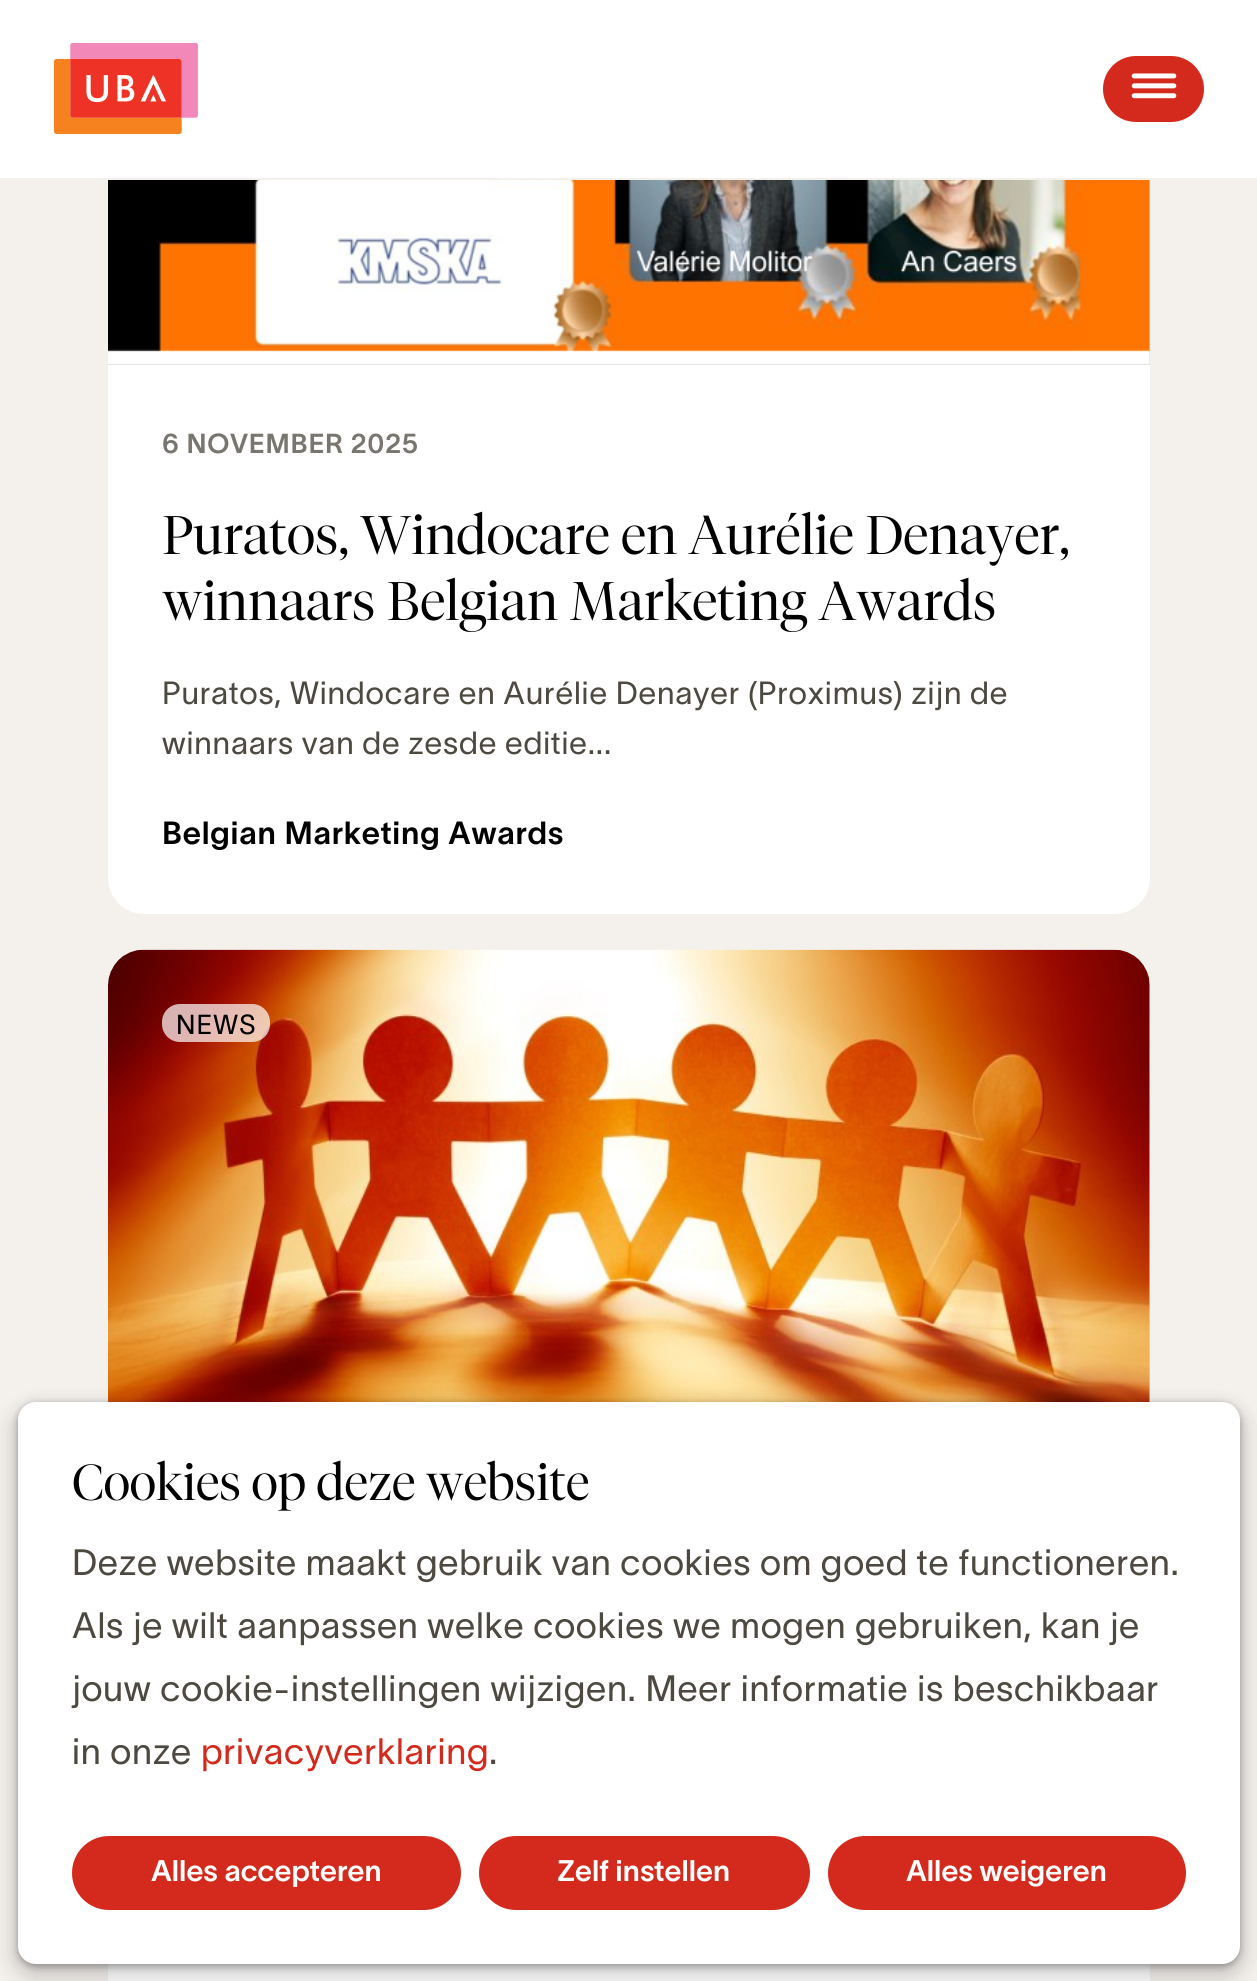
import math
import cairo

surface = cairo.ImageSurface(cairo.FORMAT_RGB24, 1257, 1981)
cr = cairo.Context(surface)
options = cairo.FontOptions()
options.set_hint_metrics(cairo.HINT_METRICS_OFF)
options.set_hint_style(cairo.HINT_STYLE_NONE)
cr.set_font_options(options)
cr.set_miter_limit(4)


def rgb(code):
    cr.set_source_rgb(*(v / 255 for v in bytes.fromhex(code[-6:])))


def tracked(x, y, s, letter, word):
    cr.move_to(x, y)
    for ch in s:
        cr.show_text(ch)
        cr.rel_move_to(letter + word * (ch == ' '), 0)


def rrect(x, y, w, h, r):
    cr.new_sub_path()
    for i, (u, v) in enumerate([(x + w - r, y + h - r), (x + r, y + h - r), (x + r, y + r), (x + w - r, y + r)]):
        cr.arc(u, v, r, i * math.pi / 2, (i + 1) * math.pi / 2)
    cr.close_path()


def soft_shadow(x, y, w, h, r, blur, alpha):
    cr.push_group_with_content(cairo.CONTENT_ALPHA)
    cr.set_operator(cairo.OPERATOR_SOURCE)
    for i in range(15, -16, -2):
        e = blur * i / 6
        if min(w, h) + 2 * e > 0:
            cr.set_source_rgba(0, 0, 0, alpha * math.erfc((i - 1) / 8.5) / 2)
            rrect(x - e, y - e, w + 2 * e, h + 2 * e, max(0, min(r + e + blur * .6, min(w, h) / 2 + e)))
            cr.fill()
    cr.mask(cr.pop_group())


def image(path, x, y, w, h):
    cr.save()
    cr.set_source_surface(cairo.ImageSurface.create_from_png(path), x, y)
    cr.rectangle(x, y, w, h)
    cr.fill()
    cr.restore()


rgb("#f4f1ed")
cr.paint()
rgb("#ffffff")
rrect(108, -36, 1042, 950, 36)
cr.fill()
rgb("#f4f1ed")
cr.rectangle(108, 178, 1042, 2)
cr.fill()
rgb("#ffffff")
cr.rectangle(0, 0, 1257, 178)
cr.fill()
image("img/1.png", 54, 43, 144, 91)
rgb("#d32a1d")
rrect(1104, 57, 99, 64, 32)
cr.fill_preserve()
cr.stroke()
image("img/2.png", 1131, 73, 46, 26)
rgb("#dbdad9")
cr.rectangle(108, 180, 1042, 185)
cr.fill()
image("img/3.png", 108, 180, 1042, 185)
rgb("#ffffff")
rrect(108, 950, 1042, 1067, 36)
cr.fill()
rgb("#dbdad9")
cr.new_path()
cr.move_to(144, 950)
cr.line_to(1114, 950)
cr.curve_to(1134, 950, 1150, 966, 1150, 986)
cr.line_to(1150, 1537)
cr.line_to(108, 1537)
cr.line_to(108, 986)
cr.curve_to(108, 966, 124, 950, 144, 950)
cr.close_path()
cr.fill()
image("img/4.png", 108, 949, 1042, 453)
cr.set_source_rgba(1, 1, 1, 0.7)
rrect(162, 1004, 108, 38, 18)
cr.fill()
rgb("#000000")
soft_shadow(18, 1404, 1222, 563, 18, 3.5, 0.3)
soft_shadow(11, 1404, 1236, 576, 25, 9, 0.15)
rgb("#ffffff")
rrect(18, 1402, 1222, 562, 18)
cr.fill()
rgb("#d32a1d")
rrect(73, 1837, 387, 72, 36)
cr.fill_preserve()
cr.stroke()
rrect(480, 1837, 329, 72, 36)
cr.fill_preserve()
cr.stroke()
rrect(829, 1837, 356, 72, 36)
cr.fill_preserve()
cr.stroke()
cr.select_font_face("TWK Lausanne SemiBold")
cr.set_font_size(27)
rgb("#797670")
tracked(162, 453, "6 NOVEMBER 2025", 0.72, 0)
cr.select_font_face("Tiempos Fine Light")
cr.set_font_size(54)
rgb("#000000")
cr.move_to(162, 554)
cr.show_text("Puratos, Windocare en Aurélie Denayer,")
cr.move_to(162, 620)
cr.show_text("winnaars Belgian Marketing Awards")
cr.select_font_face("TWK Lausanne Light")
cr.set_font_size(31.5)
rgb("#4d4941")
tracked(162, 704, "Puratos, Windocare en Aurélie Denayer (Proximus) zijn de", 0.8, 0)
tracked(162, 754, "winnaars van de zesde editie...", 0.8, 0)
cr.select_font_face("TWK Lausanne SemiBold")
rgb("#000000")
tracked(162, 844, "Belgian Marketing Awards", 0.72, 0)
cr.select_font_face("TWK Lausanne Light")
cr.set_font_size(27)
tracked(176, 1034, "NEWS", 1, 0)
cr.select_font_face("Tiempos Fine Light")
cr.set_font_size(50.4)
cr.move_to(72, 1500)
cr.show_text("Cookies op deze website")
cr.select_font_face("TWK Lausanne Light")
cr.set_font_size(36)
rgb("#4d4941")
for x, y, s in [
    (72, 1575, "Deze website maakt gebruik van cookies om goed te functioneren."),
    (72, 1638, "Als je wilt aanpassen welke cookies we mogen gebruiken, kan je"),
    (72, 1701, "jouw cookie-instellingen wijzigen. Meer informatie is beschikbaar"),
    (72, 1764, "in onze"),
]:
    tracked(x, y, s, 0.72, 0)
rgb("#d32a1d")
tracked(201, 1764, "privacyverklaring", 0.72, 0)
rgb("#4d4941")
tracked(489, 1764, ".", 0.72, 0)
cr.select_font_face("TWK Lausanne SemiBold")
cr.set_font_size(29.25)
rgb("#ffffff")
for x, y, s in [
    (151, 1881, "Alles accepteren"),
    (557, 1881, "Zelf instellen"),
    (906, 1881, "Alles weigeren"),
]:
    cr.move_to(x, y)
    cr.show_text(s)
surface.write_to_png("page.png")
